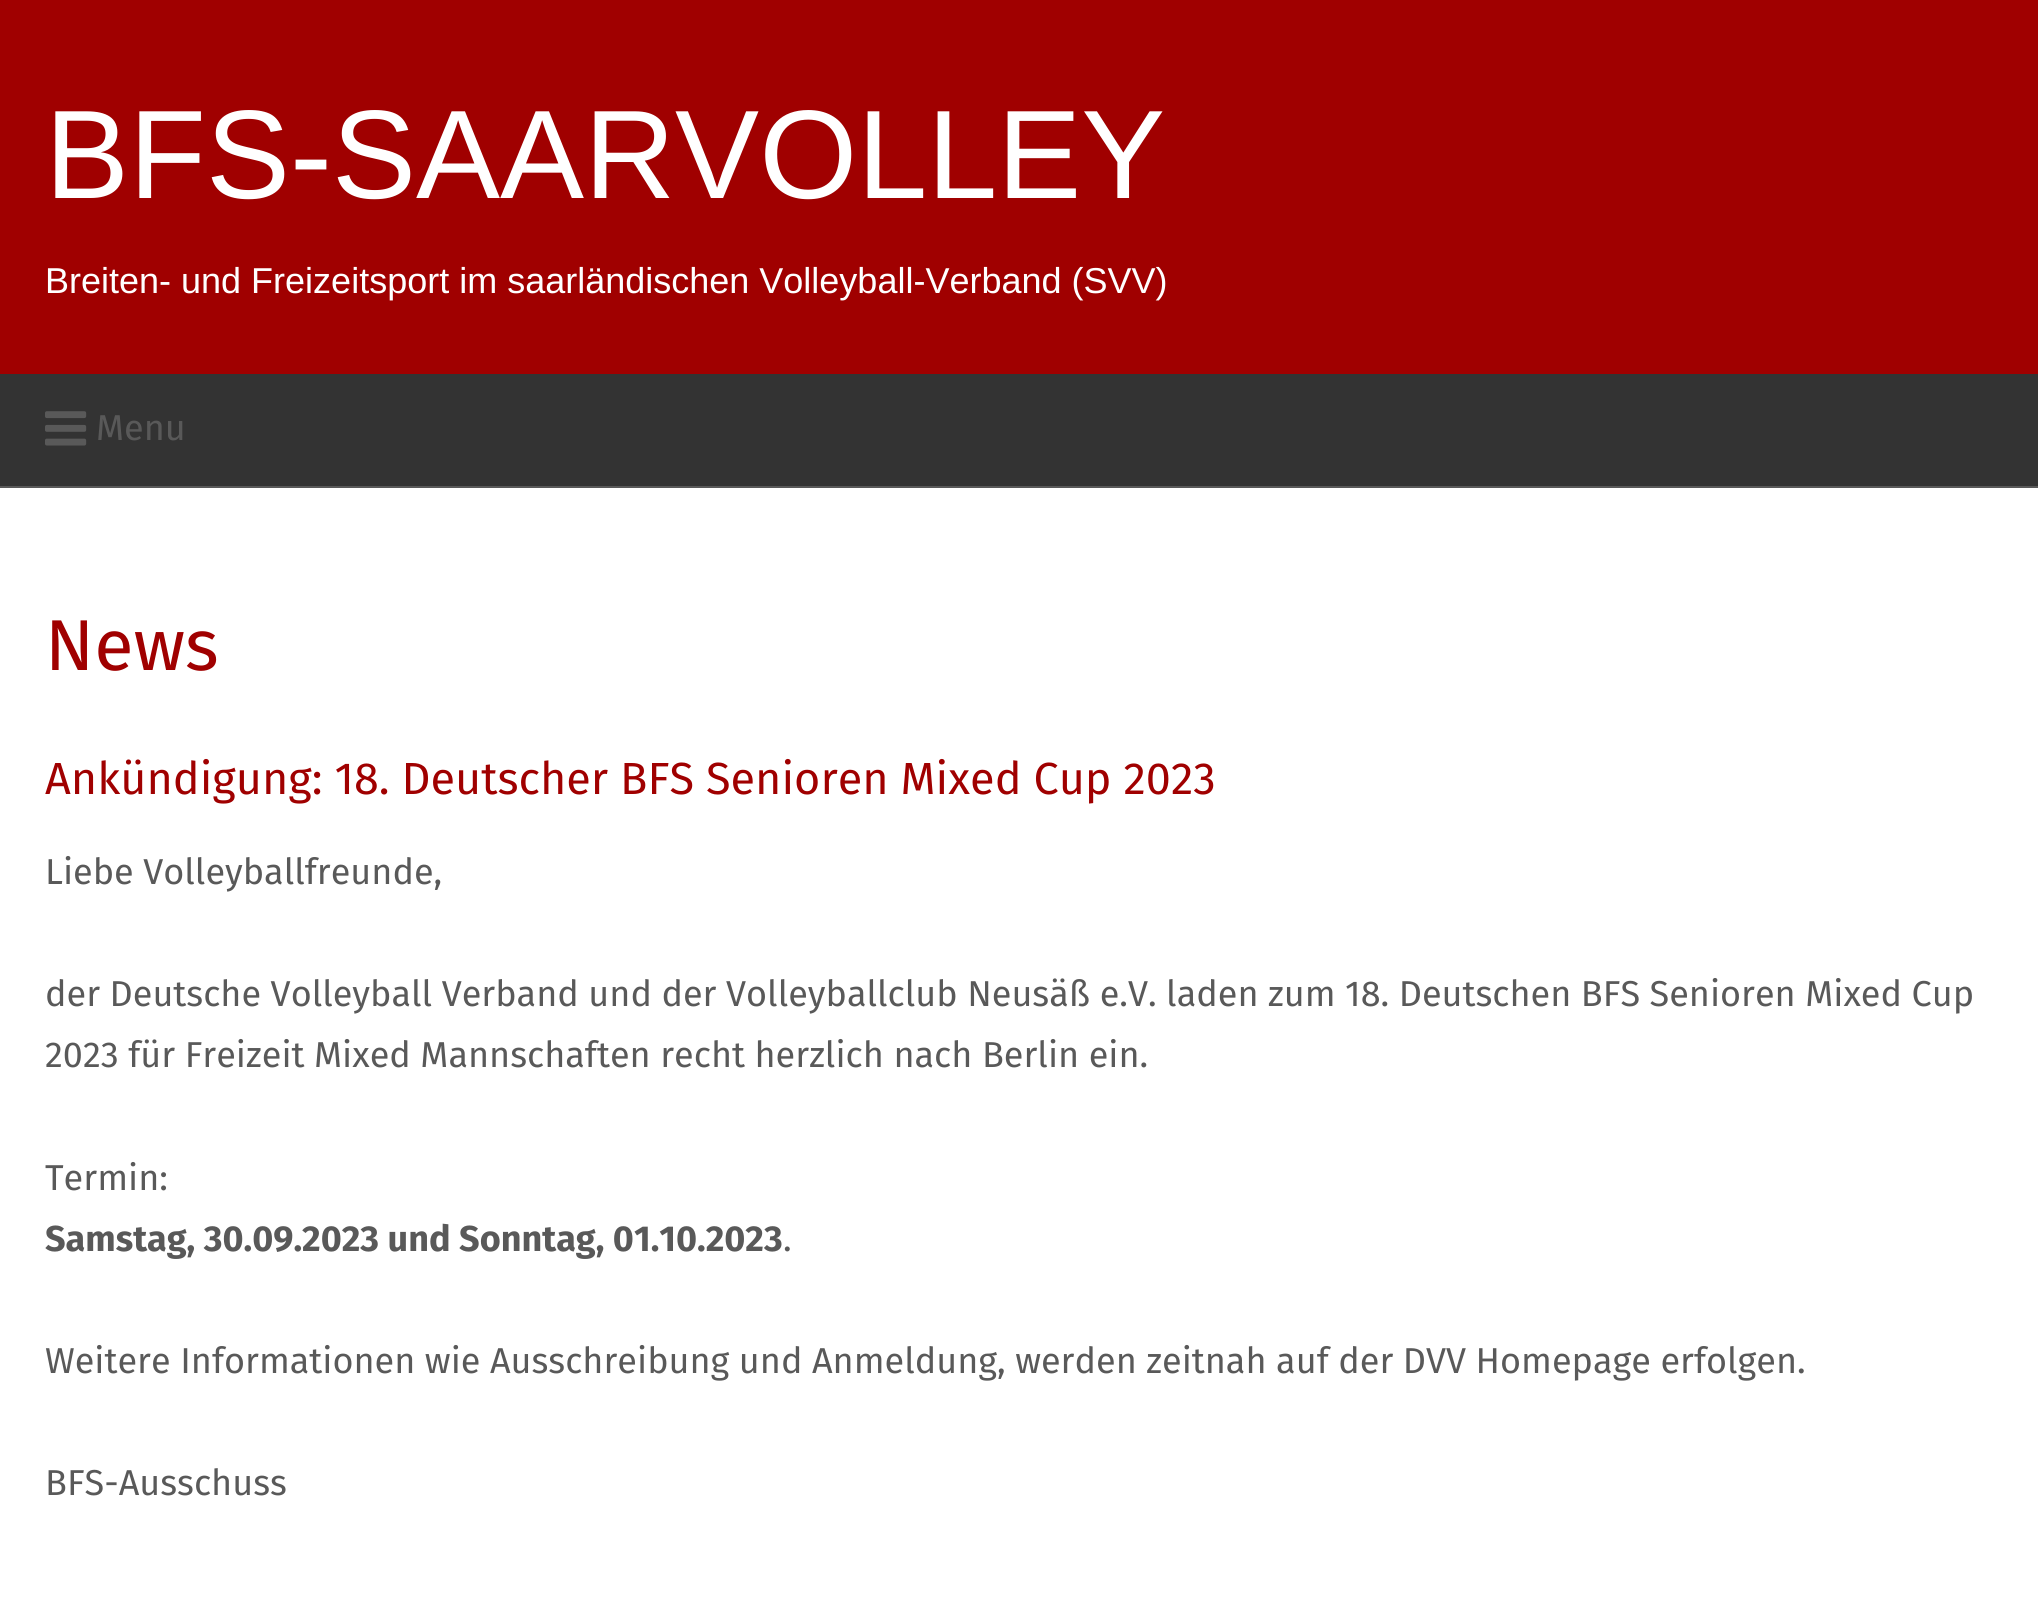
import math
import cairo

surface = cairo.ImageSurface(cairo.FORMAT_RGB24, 2038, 1601)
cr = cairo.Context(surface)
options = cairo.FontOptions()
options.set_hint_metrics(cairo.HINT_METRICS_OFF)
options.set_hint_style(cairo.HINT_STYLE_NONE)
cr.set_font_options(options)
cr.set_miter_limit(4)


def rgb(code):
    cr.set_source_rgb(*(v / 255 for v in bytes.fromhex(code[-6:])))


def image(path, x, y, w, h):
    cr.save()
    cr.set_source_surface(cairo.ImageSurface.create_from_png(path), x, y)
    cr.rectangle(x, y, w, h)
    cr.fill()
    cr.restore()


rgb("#ffffff")
cr.paint()
for x, y, w, h, color in [
    (0, 0, 2038, 374, "#a00000"),
    (0, 374, 2038, 112, "#333333"),
    (0, 486, 2038, 2, "#595959"),
]:
    rgb(color)
    cr.rectangle(x, y, w, h)
    cr.fill()
image("img/1.png", 45, 411, 42, 35)
cr.select_font_face("Liberation Sans")
cr.set_font_size(126)
rgb("#ffffff")
cr.move_to(45, 198)
cr.show_text("BFS-SAARVOLLEY")
cr.set_font_size(36)
cr.move_to(45, 293)
cr.show_text("Breiten- und Freizeitsport im saarländischen Volleyball-Verband (SVV)")
cr.select_font_face("Fira Sans")
rgb("#595959")
cr.move_to(96, 440)
cr.show_text("Menu")
cr.set_font_size(72)
rgb("#a00000")
cr.move_to(45, 670)
cr.show_text("News")
cr.set_font_size(45)
cr.move_to(45, 794)
cr.show_text("Ankündigung: 18. Deutscher BFS Senioren Mixed Cup 2023")
cr.set_font_size(36)
rgb("#595959")
for x, y, s in [
    (45, 884, "Liebe Volleyballfreunde,"),
    (45, 1006, "der Deutsche Volleyball Verband und der Volleyballclub Neusäß e.V. laden zum 18. Deutschen BFS Senioren Mixed Cup"),
    (45, 1067, "2023 für Freizeit Mixed Mannschaften recht herzlich nach Berlin ein."),
    (45, 1190, "Termin:"),
]:
    cr.move_to(x, y)
    cr.show_text(s)
cr.select_font_face("Fira Sans", cairo.FONT_SLANT_NORMAL, cairo.FONT_WEIGHT_BOLD)
cr.move_to(45, 1251)
cr.show_text("Samstag, 30.09.2023 und Sonntag, 01.10.2023")
cr.select_font_face("Fira Sans")
for x, y, s in [
    (783, 1251, "."),
    (45, 1373, "Weitere Informationen wie Ausschreibung und Anmeldung, werden zeitnah auf der DVV Homepage erfolgen."),
    (45, 1495, "BFS-Ausschuss"),
]:
    cr.move_to(x, y)
    cr.show_text(s)
surface.write_to_png("page.png")
